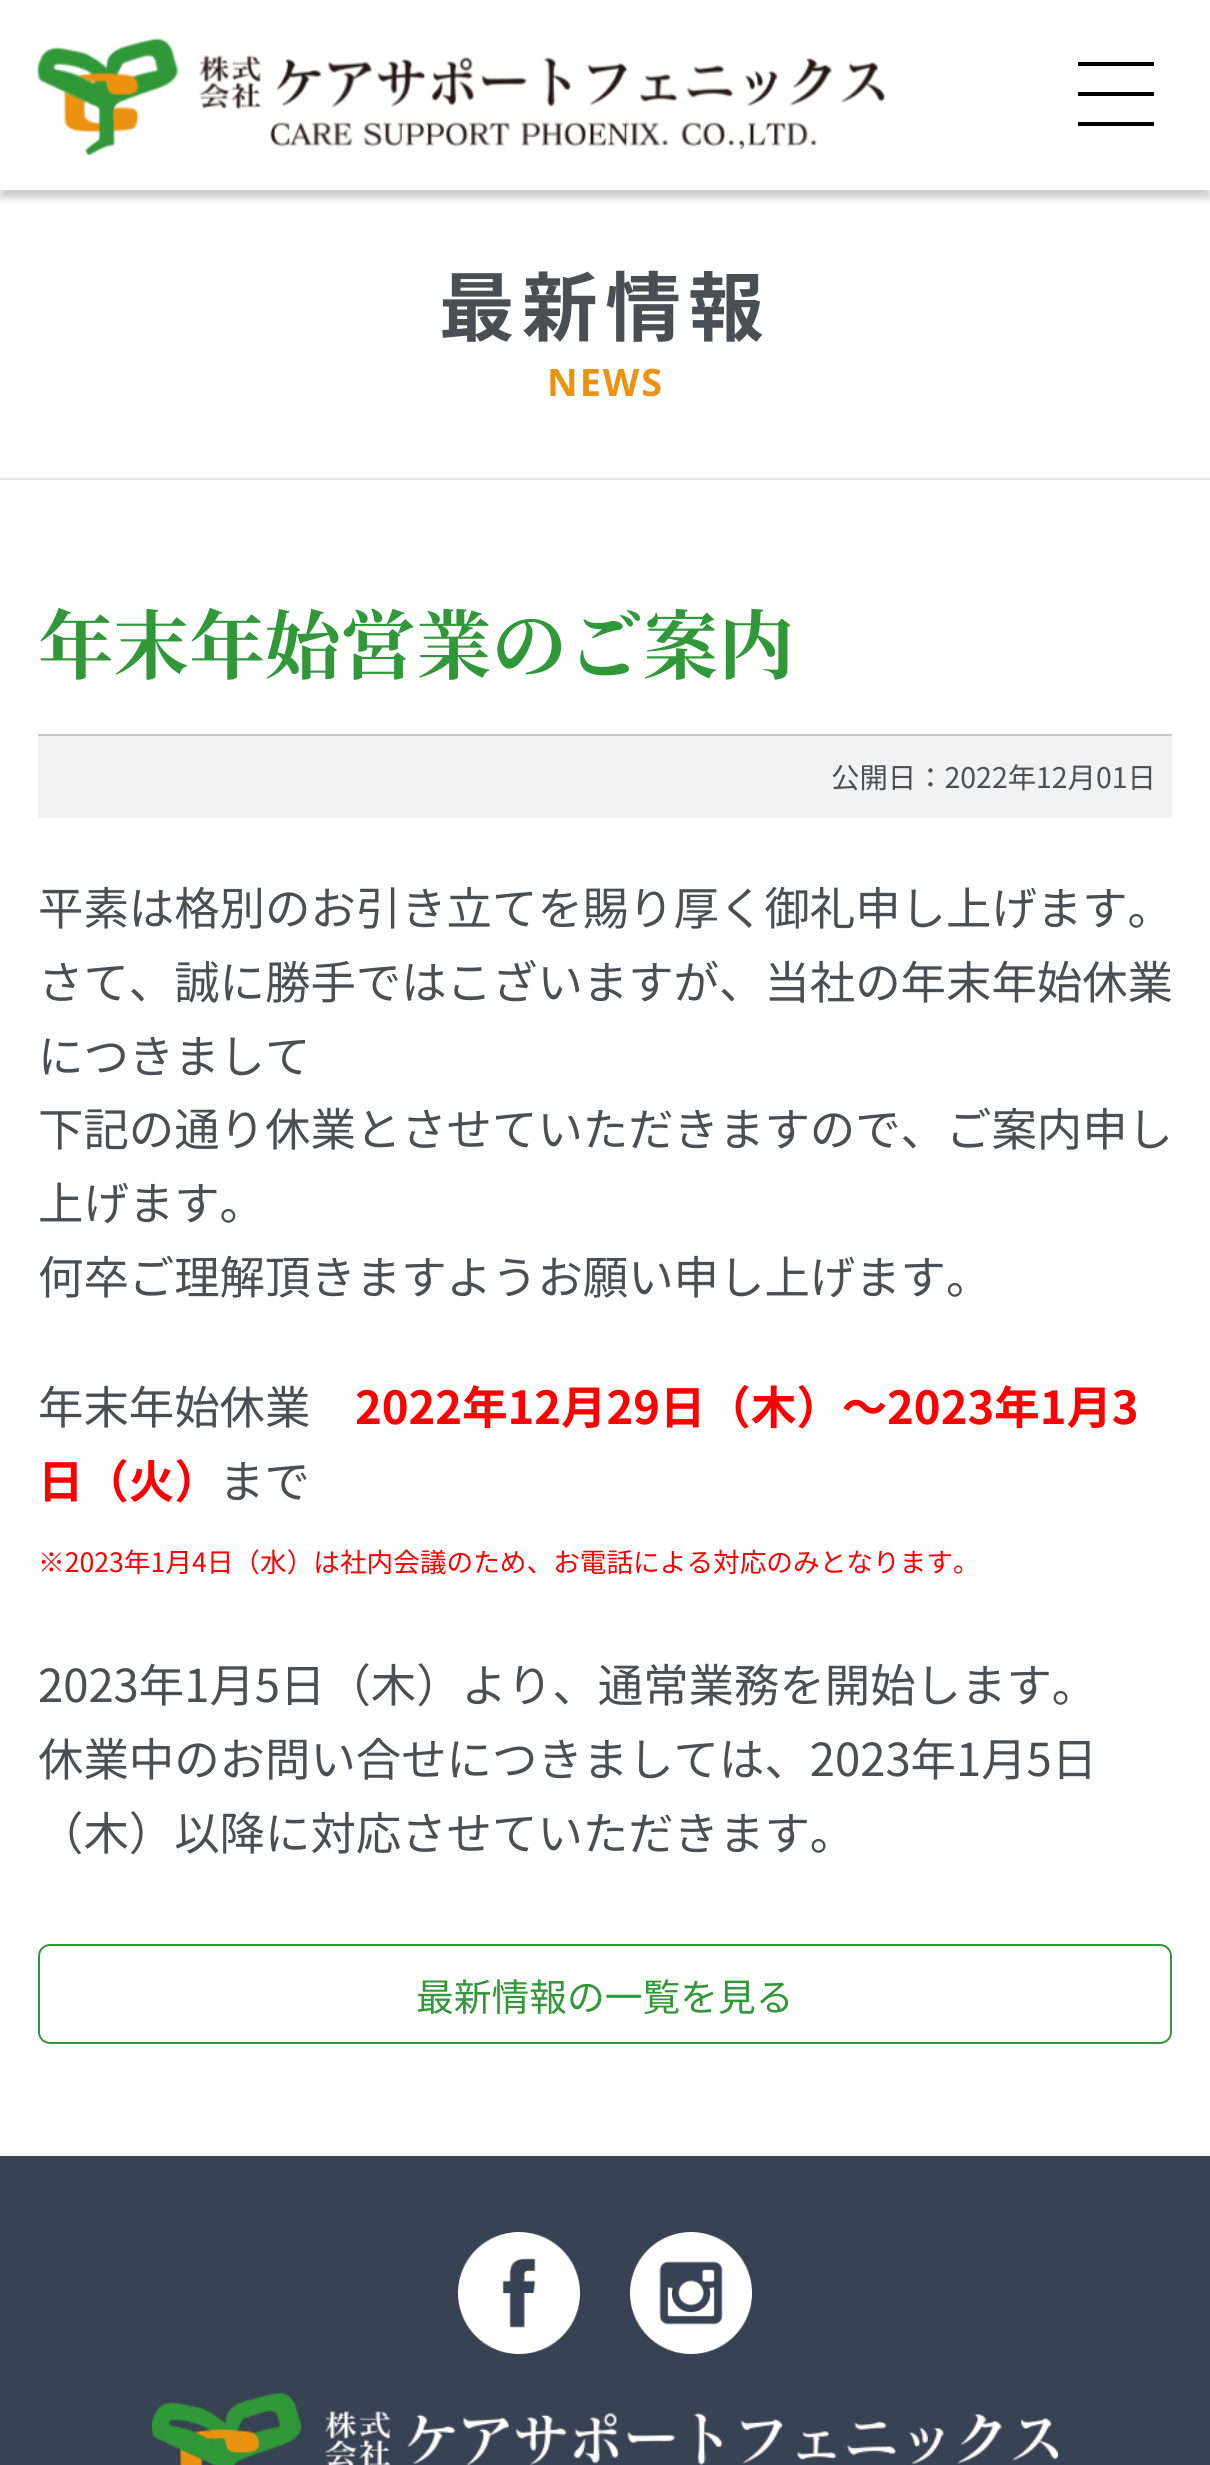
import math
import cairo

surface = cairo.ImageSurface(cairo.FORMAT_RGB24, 1210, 2465)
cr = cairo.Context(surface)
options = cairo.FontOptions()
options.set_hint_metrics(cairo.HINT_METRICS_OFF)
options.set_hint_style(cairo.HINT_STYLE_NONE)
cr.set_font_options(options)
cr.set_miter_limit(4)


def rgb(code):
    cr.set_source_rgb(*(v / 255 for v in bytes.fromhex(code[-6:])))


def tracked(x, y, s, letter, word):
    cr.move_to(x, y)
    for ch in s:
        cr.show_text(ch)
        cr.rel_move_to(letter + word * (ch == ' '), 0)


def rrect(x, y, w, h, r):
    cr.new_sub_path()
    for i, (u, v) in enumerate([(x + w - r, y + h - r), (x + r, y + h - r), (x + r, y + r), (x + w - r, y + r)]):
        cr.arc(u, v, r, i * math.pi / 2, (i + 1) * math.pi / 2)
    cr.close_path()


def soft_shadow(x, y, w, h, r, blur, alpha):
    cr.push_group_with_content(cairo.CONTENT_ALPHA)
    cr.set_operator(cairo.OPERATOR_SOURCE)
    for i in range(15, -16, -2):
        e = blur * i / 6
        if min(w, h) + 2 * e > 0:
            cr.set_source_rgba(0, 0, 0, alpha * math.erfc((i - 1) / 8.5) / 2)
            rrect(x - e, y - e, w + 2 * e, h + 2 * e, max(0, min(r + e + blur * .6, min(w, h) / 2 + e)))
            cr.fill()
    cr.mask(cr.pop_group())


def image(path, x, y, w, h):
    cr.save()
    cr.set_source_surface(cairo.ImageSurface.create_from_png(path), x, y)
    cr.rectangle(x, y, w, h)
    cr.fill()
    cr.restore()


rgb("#ffffff")
cr.paint()
cr.save()
cr.rectangle(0, 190, 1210, 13)
cr.clip()
rgb("#000000")
soft_shadow(0, 8, 1210, 190, 0, 4, 0.2)
cr.restore()
image("img/1.png", 37, 38, 848, 118)
for x, y, w, h, color in [
    (1078, 92, 76, 4, "#000000"),
    (1078, 62, 76, 4, "#000000"),
    (1078, 122, 76, 4, "#000000"),
    (0, 478, 1210, 2, "#e5e5e5"),
    (38, 734, 1134, 2, "#c8c8c8"),
    (38, 736, 1134, 82, "#f2f2f2"),
]:
    rgb(color)
    cr.rectangle(x, y, w, h)
    cr.fill()
rrect(39, 1945, 1132, 98, 11)
rgb("#319839")
cr.stroke()
rgb("#374252")
cr.rectangle(0, 2156, 1210, 309)
cr.fill()
image("img/2.png", 458, 2232, 122, 122)
image("img/3.png", 630, 2232, 122, 122)
image("img/4.png", 152, 2393, 906, 72)
cr.select_font_face("Noto Sans JP", cairo.FONT_SLANT_NORMAL, cairo.FONT_WEIGHT_BOLD)
cr.set_font_size(75.6)
rgb("#4a4f54")
tracked(439, 335, "最新情報", 7.5, 0)
cr.select_font_face("Open Sans", cairo.FONT_SLANT_NORMAL, cairo.FONT_WEIGHT_BOLD)
cr.set_font_size(37.75)
rgb("#eb9311")
tracked(547, 396, "NEWS", 2, 0)
cr.select_font_face("Noto Serif JP ExtraLight")
cr.set_font_size(75.6)
rgb("#319839")
cr.move_to(38, 673)
cr.show_text("年末年始営業のご案内")
cr.select_font_face("Noto Sans JP")
cr.set_font_size(28.4)
rgb("#4a4f54")
cr.move_to(831, 788)
cr.show_text("公開日：2022年12月01日")
cr.set_font_size(45.4)
for x, y, s in [
    (38, 925, "平素は格別のお引き立てを賜り厚く御礼申し上げます。"),
    (38, 999, "さて、誠に勝手ではこざいますが、当社の年末年始休業"),
    (38, 1073, "につきまして"),
    (38, 1146, "下記の通り休業とさせていただきますので、ご案内申し"),
    (38, 1220, "上げます。"),
    (38, 1294, "何卒ご理解頂きますようお願い申し上げます。"),
    (38, 1424, "年末年始休業"),
]:
    cr.move_to(x, y)
    cr.show_text(s)
cr.select_font_face("Noto Sans JP", cairo.FONT_SLANT_NORMAL, cairo.FONT_WEIGHT_BOLD)
rgb("#ff0000")
cr.move_to(355, 1424)
cr.show_text("2022年12月29日（木）～2023年1月3")
cr.move_to(38, 1498)
cr.show_text("日（火）")
cr.select_font_face("Noto Sans JP")
rgb("#4a4f54")
cr.move_to(219, 1498)
cr.show_text("まで")
cr.set_font_size(26.65)
rgb("#ff0000")
cr.move_to(38, 1572)
cr.show_text("※2023年1月4日（水）は社内会議のため、お電話による対応のみとなります。")
cr.set_font_size(45.4)
rgb("#4a4f54")
for x, y, s in [
    (38, 1702, "2023年1月5日（木）より、通常業務を開始します。"),
    (38, 1776, "休業中のお問い合せにつきましては、2023年1月5日"),
    (38, 1850, "（木）以降に対応させていただきます。"),
]:
    cr.move_to(x, y)
    cr.show_text(s)
cr.set_font_size(37.75)
rgb("#319839")
cr.move_to(416, 2011)
cr.show_text("最新情報の一覧を見る")
surface.write_to_png("page.png")
